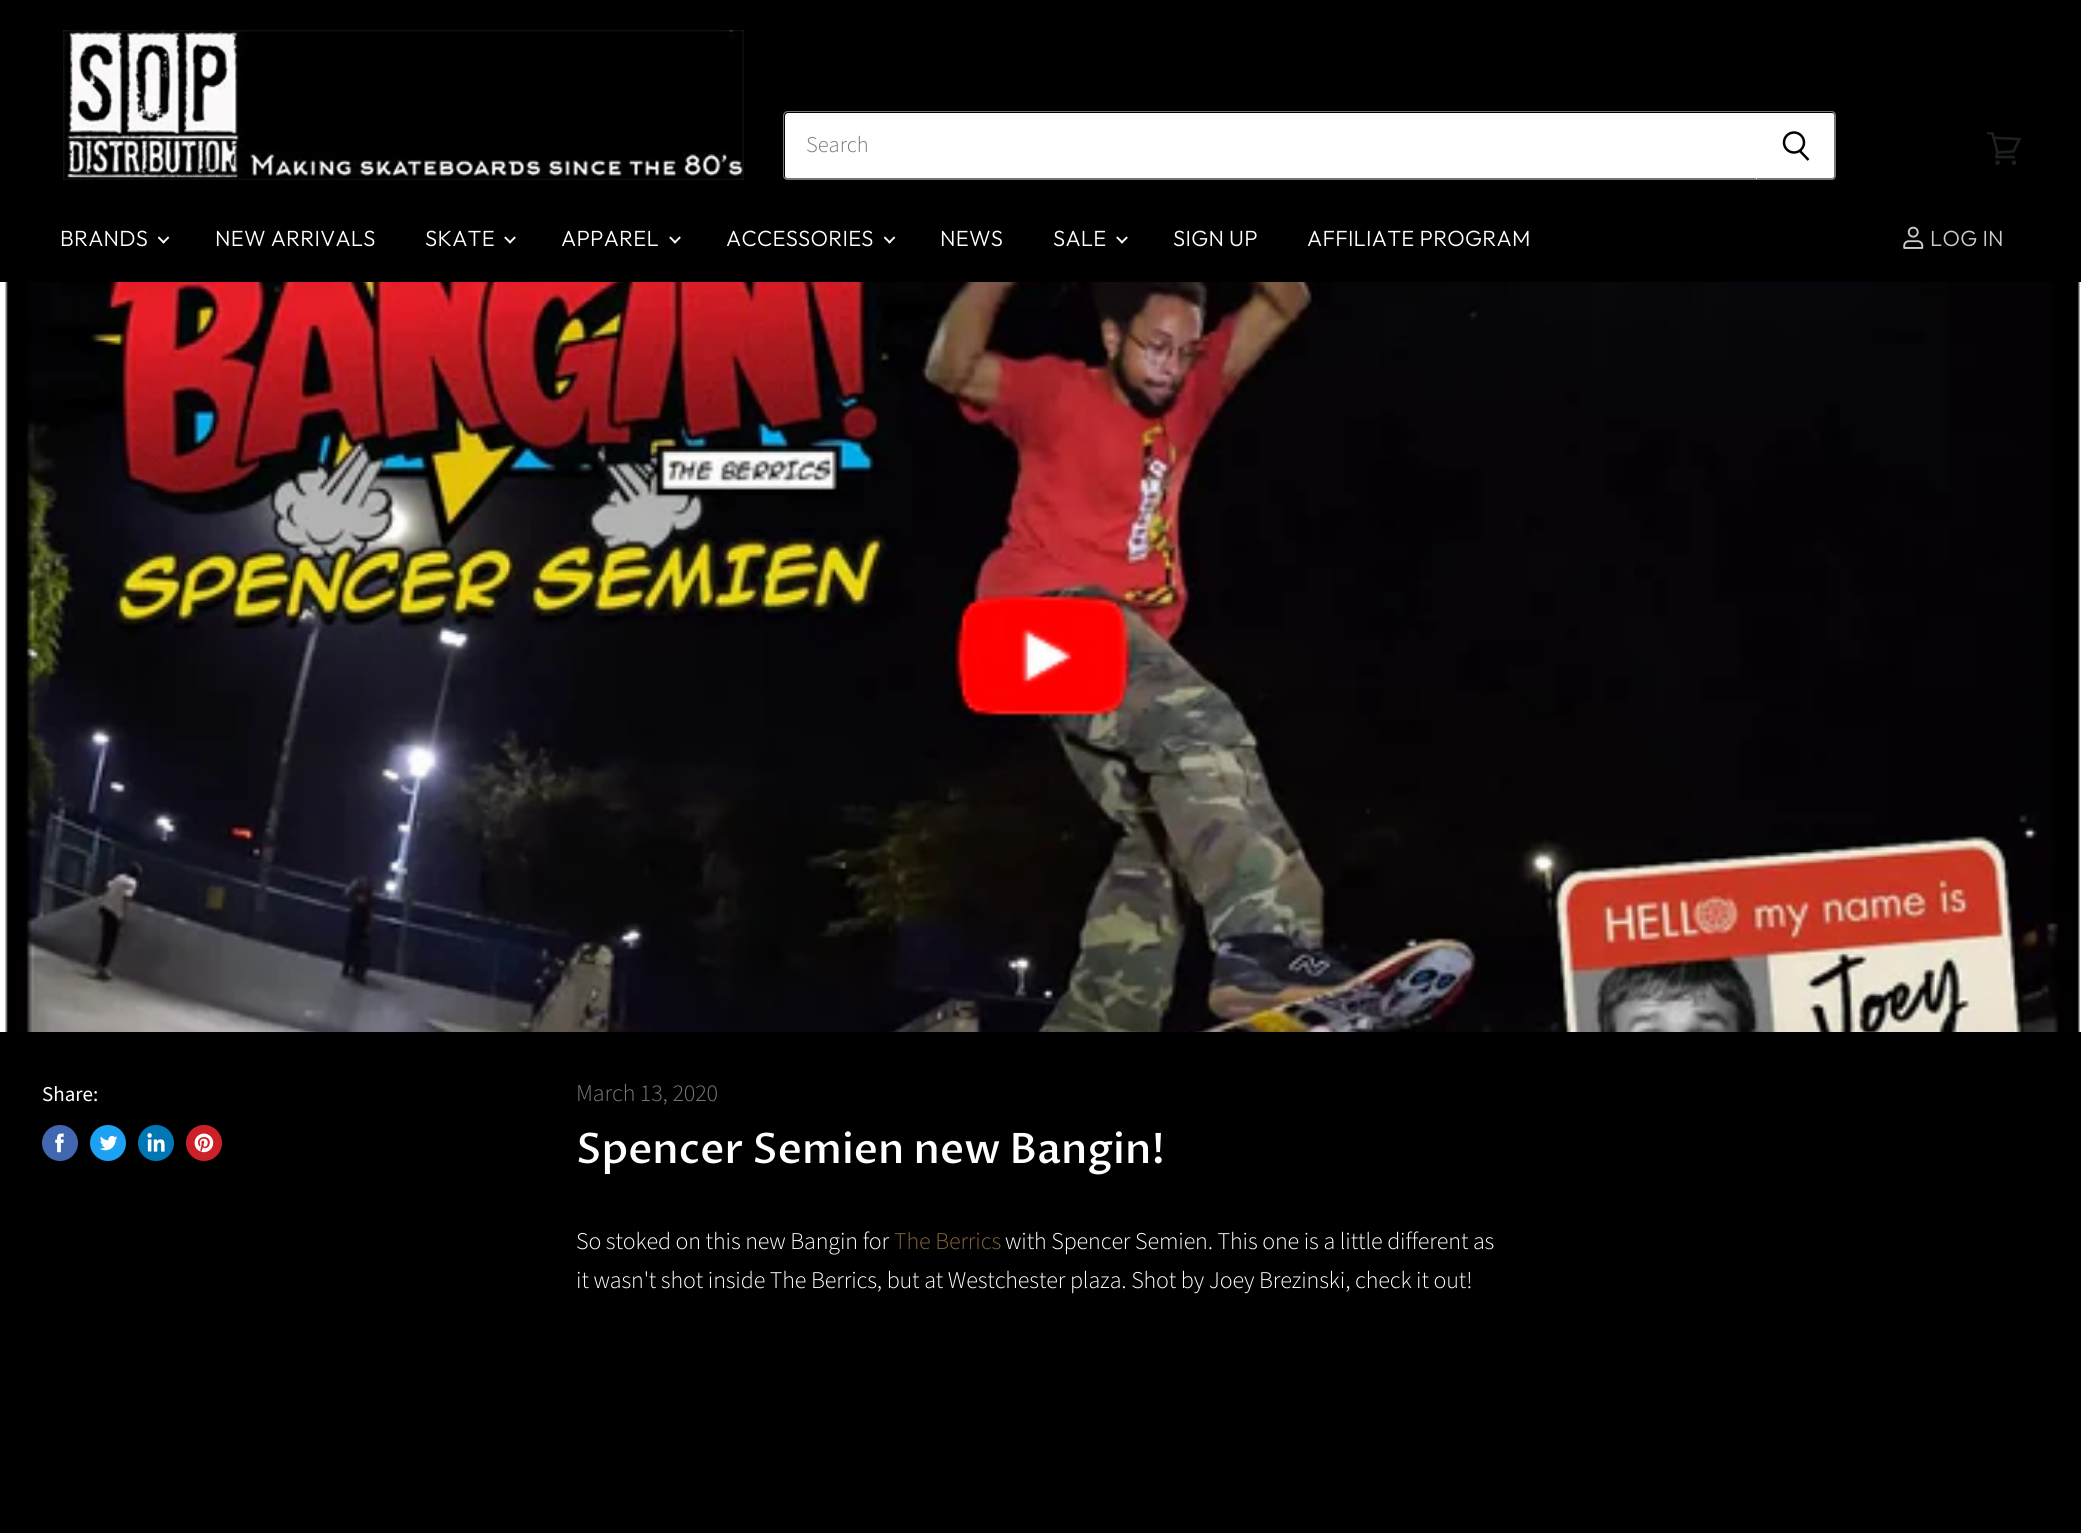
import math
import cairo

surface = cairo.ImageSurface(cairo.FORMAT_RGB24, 2081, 1533)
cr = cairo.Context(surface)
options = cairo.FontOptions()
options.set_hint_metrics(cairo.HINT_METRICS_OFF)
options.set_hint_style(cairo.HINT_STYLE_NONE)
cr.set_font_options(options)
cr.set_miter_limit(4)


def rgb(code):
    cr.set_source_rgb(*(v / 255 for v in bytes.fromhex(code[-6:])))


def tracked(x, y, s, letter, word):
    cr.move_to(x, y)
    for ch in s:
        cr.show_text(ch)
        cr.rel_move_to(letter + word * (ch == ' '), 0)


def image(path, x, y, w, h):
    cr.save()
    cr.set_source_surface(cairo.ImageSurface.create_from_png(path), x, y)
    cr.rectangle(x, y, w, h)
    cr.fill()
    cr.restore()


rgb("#000000")
cr.paint()
image("img/1.png", 63, 30, 681, 150)
rgb("#ffffff")
cr.new_path()
cr.move_to(1757, 113)
cr.line_to(1832, 113)
cr.curve_to(1833.5, 113, 1835, 114.5, 1835, 116)
cr.line_to(1835, 176)
cr.curve_to(1835, 177.5, 1833.5, 179, 1832, 179)
cr.line_to(1757, 179)
cr.close_path()
cr.fill()
rgb("#777777")
cr.set_fill_rule(cairo.FILL_RULE_EVEN_ODD)
cr.new_path()
cr.move_to(1756, 111)
cr.line_to(1832, 111)
cr.curve_to(1834, 111, 1836, 113, 1836, 116)
cr.line_to(1836, 176)
cr.curve_to(1836, 178, 1834, 180, 1832, 180)
cr.line_to(1756, 180)
cr.close_path()
cr.move_to(1756, 112)
cr.line_to(1832, 112)
cr.curve_to(1833, 112, 1834, 114, 1834, 116)
cr.line_to(1834, 176)
cr.curve_to(1834, 177, 1833, 178, 1832, 178)
cr.line_to(1756, 178)
cr.close_path()
cr.fill()
rgb("#ffffff")
cr.new_path()
cr.move_to(788, 113)
cr.line_to(1757, 113)
cr.line_to(1757, 179)
cr.line_to(788, 179)
cr.curve_to(786.5, 179, 785, 177.5, 785, 176)
cr.line_to(785, 116)
cr.curve_to(785, 114.5, 786.5, 113, 788, 113)
cr.close_path()
cr.fill()
rgb("#777777")
cr.new_path()
cr.move_to(788, 111)
cr.line_to(1756, 111)
cr.line_to(1756, 180)
cr.line_to(788, 180)
cr.curve_to(785, 180, 783, 178, 783, 176)
cr.line_to(783, 116)
cr.curve_to(783, 113, 785, 111, 788, 111)
cr.close_path()
cr.move_to(788, 112)
cr.line_to(1756, 112)
cr.line_to(1756, 178)
cr.line_to(788, 178)
cr.curve_to(786, 178, 784, 177, 784, 176)
cr.line_to(784, 116)
cr.curve_to(784, 114, 786, 112, 788, 112)
cr.close_path()
cr.fill()
cr.new_path()
cr.move_to(1808.5, 160)
cr.line_to(1800, 151)
rgb("#000000")
cr.set_line_width(2.5)
cr.stroke()
cr.arc(1794, 142.5, 10, 0, 2 * math.pi)
cr.stroke()
image("img/2.png", 1987, 132, 35, 33)
image("img/3.png", 158, 236, 12, 8)
image("img/4.png", 504, 236, 12, 8)
image("img/4.png", 669, 236, 12, 8)
image("img/3.png", 884, 236, 12, 8)
image("img/4.png", 1116, 236, 12, 8)
image("img/5.png", 1903, 226, 21, 23)
image("img/6.png", 0, 282, 2081, 750)
rgb("#4267b1")
cr.arc(60, 1143, 18, 0, 2 * math.pi)
cr.fill()
image("img/7.png", 55, 1133, 9, 20)
rgb("#1da1f2")
cr.arc(108, 1143, 18, 0, 2 * math.pi)
cr.fill()
image("img/8.png", 100, 1135, 18, 16)
rgb("#0077b5")
cr.arc(156, 1143, 18, 0, 2 * math.pi)
cr.fill()
image("img/9.png", 147, 1133, 18, 19)
rgb("#cc2129")
cr.arc(204, 1143, 18, 0, 2 * math.pi)
cr.fill()
image("img/10.png", 194, 1133, 20, 20)
cr.select_font_face("Source Sans Pro Light")
cr.set_font_size(22.5)
rgb("#767a79")
cr.move_to(806, 152)
cr.show_text("Search")
cr.select_font_face("Outfit Light")
cr.set_font_size(22)
rgb("#ffffff")
for x, y, s in [
    (60, 246, "BRANDS"),
    (215, 246, "NEW ARRIVALS"),
    (425, 246, "SKATE"),
    (561, 246, "APPAREL"),
    (726, 246, "ACCESSORIES"),
    (940, 246, "NEWS"),
    (1053, 246, "SALE"),
    (1173, 246, "SIGN UP"),
    (1307, 246, "AFFILIATE PROGRAM"),
]:
    tracked(x, y, s, 0.25, 0)
rgb("#cccccc")
tracked(1930, 246, "LOG IN", 0.25, 0)
cr.select_font_face("Source Sans Pro")
cr.set_font_size(21)
rgb("#ffffff")
cr.move_to(42, 1101)
cr.show_text("Share:")
cr.select_font_face("Source Sans Pro Light")
cr.set_font_size(24)
rgb("#7c7873")
tracked(576, 1101, "March 13, 2020", -0.12, 0)
cr.select_font_face("Proza Libre Medium")
cr.set_font_size(42)
rgb("#ffffff")
cr.move_to(576, 1163)
cr.show_text("Spencer Semien new Bangin!")
cr.select_font_face("Source Sans Pro Light")
cr.set_font_size(24)
tracked(576, 1249, "So stoked on this new Bangin for", -0.12, 0)
rgb("#816339")
tracked(894, 1249, "The Berrics", -0.12, 0)
rgb("#ffffff")
tracked(1005, 1249, "with Spencer Semien. This one is a little different as", -0.12, 0)
tracked(576, 1288, "it wasn't shot inside The Berrics, but at Westchester plaza. Shot by Joey Brezinski, check it out!", -0.12, 0)
surface.write_to_png("page.png")
